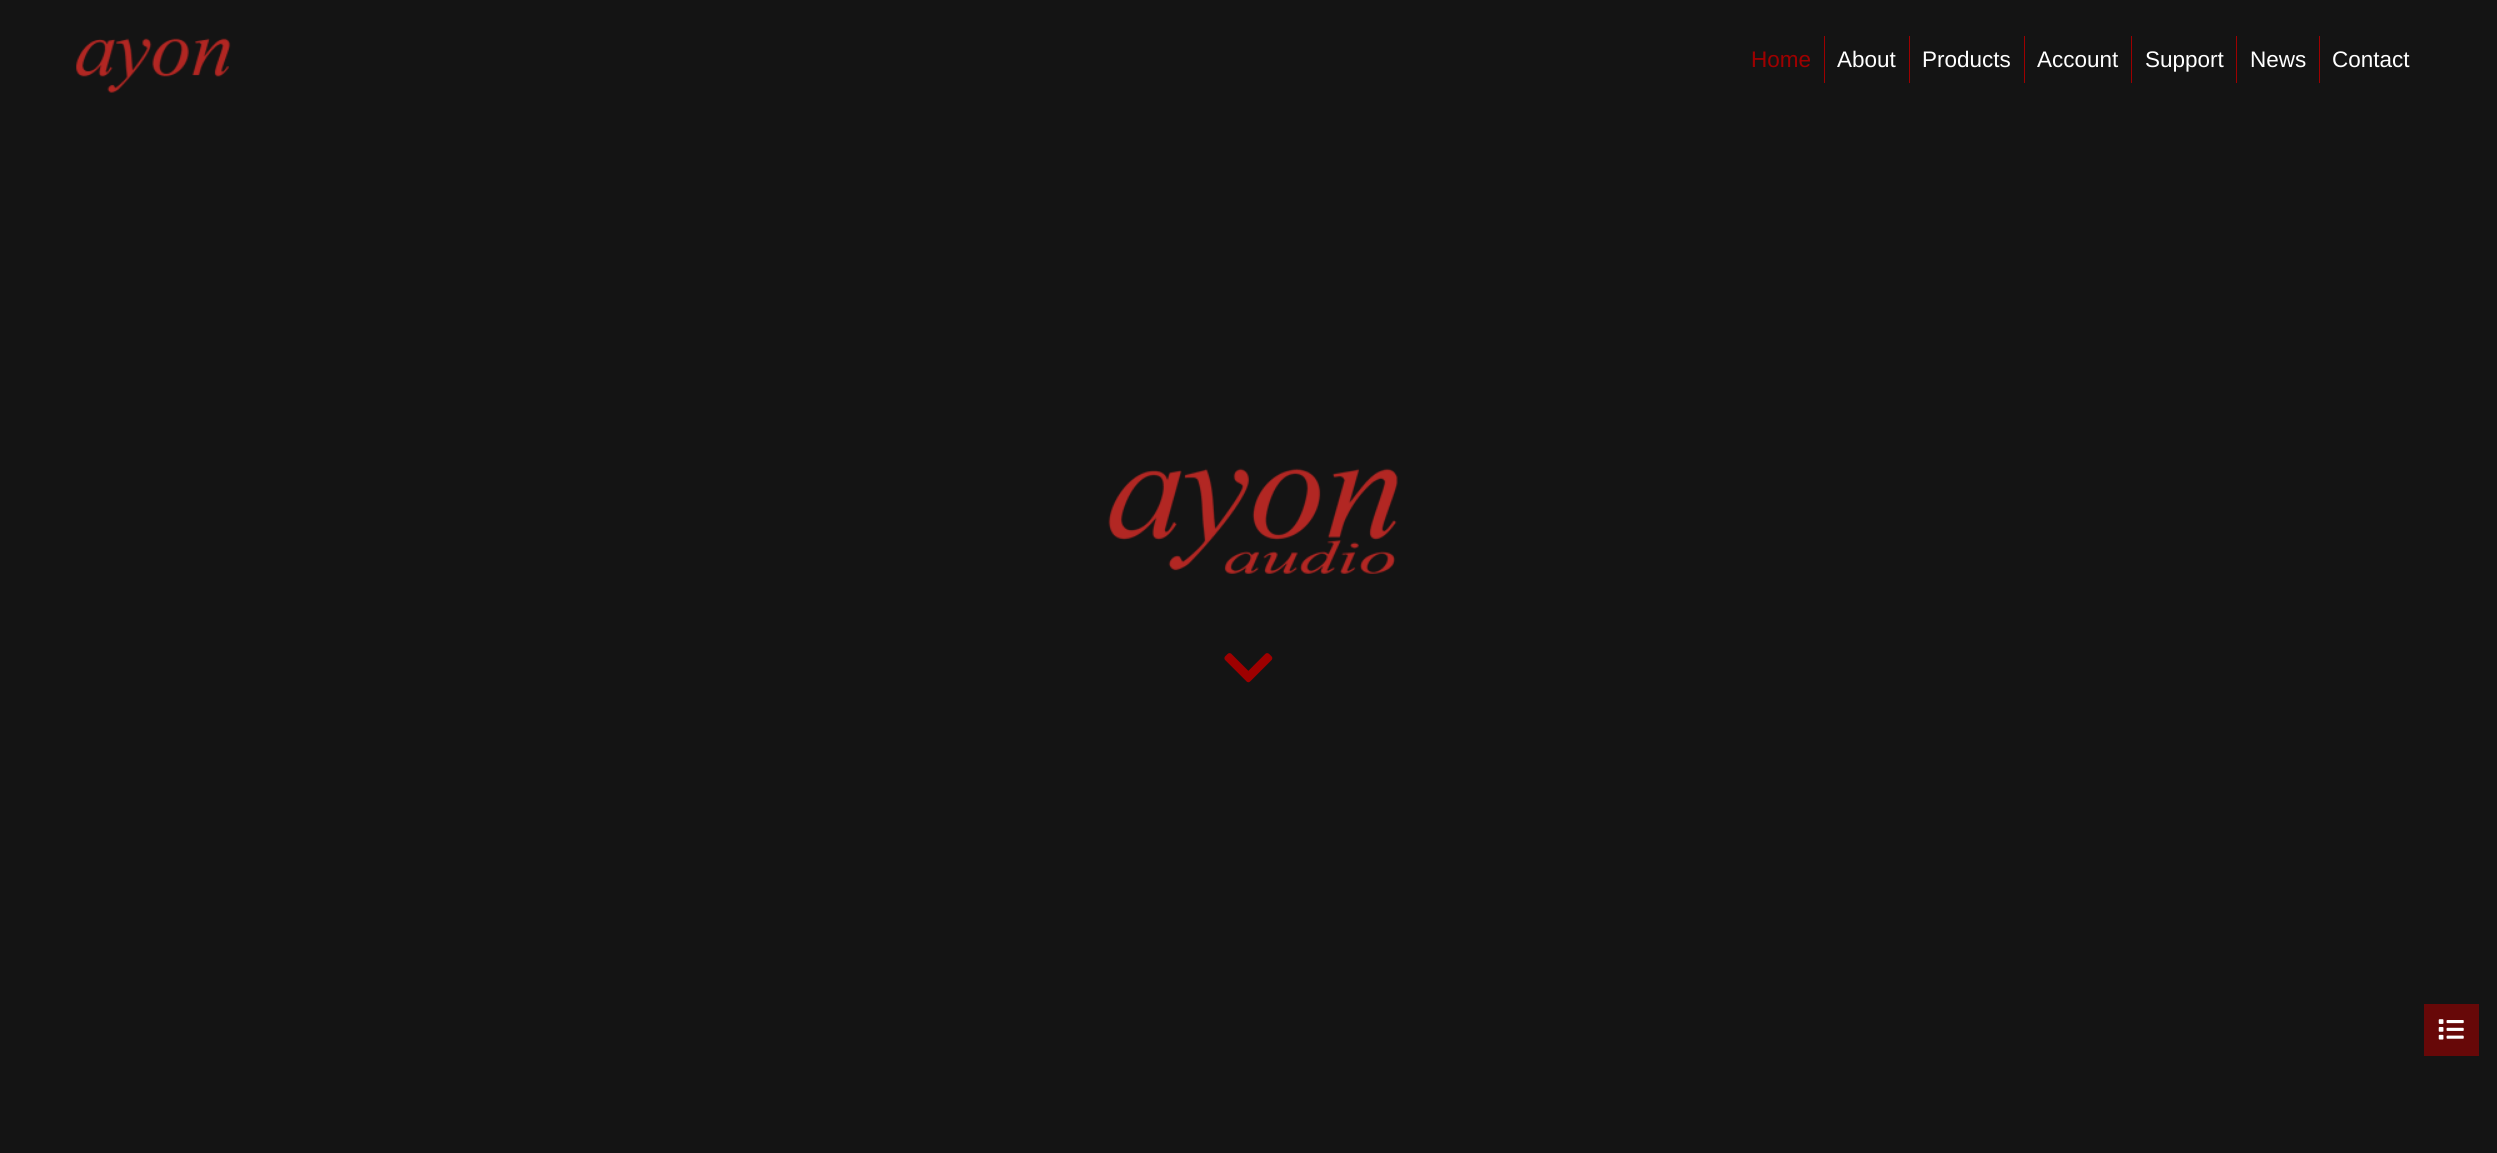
import math
import cairo

surface = cairo.ImageSurface(cairo.FORMAT_RGB24, 2497, 1153)
cr = cairo.Context(surface)
options = cairo.FontOptions()
options.set_hint_metrics(cairo.HINT_METRICS_OFF)
options.set_hint_style(cairo.HINT_STYLE_NONE)
cr.set_font_options(options)
cr.set_miter_limit(4)


def rgb(code):
    cr.set_source_rgb(*(v / 255 for v in bytes.fromhex(code[-6:])))


def image(path, x, y, w, h):
    cr.save()
    cr.set_source_surface(cairo.ImageSurface.create_from_png(path), x, y)
    cr.rectangle(x, y, w, h)
    cr.fill()
    cr.restore()


rgb("#141414")
cr.paint()
image("img/1.png", 76, 38, 155, 55)
for x, y, w, h, color in [
    (1824, 36, 1, 47, "#9e0000"),
    (1909, 36, 1, 47, "#9e0000"),
    (2024, 36, 1, 47, "#9e0000"),
    (2131, 36, 1, 47, "#9e0000"),
    (2236, 36, 1, 47, "#9e0000"),
    (2319, 36, 1, 47, "#9e0000"),
]:
    rgb(color)
    cr.rectangle(x, y, w, h)
    cr.fill()
image("img/2.png", 1108, 468, 290, 106)
image("img/3.png", 1224, 653, 49, 30)
rgb("#670808")
cr.rectangle(2424, 1004, 55, 52)
cr.fill()
image("img/4.png", 2438, 1019, 26, 21)
cr.select_font_face("Liberation Sans")
cr.set_font_size(22.5)
rgb("#9e0000")
cr.move_to(1751, 67)
cr.show_text("Home")
rgb("#ffffff")
for x, y, s in [
    (1837, 67, "About"),
    (1922, 67, "Products"),
    (2037, 67, "Account"),
    (2145, 67, "Support"),
    (2250, 67, "News"),
    (2332, 67, "Contact"),
]:
    cr.move_to(x, y)
    cr.show_text(s)
surface.write_to_png("page.png")
